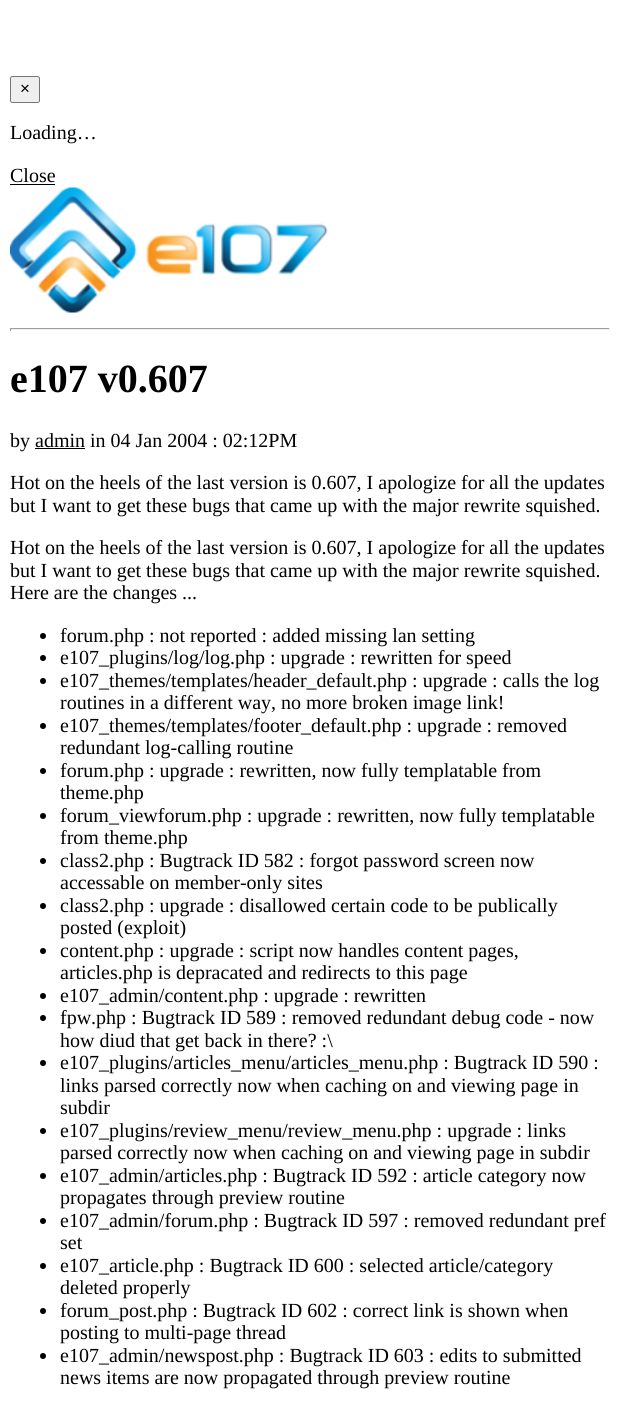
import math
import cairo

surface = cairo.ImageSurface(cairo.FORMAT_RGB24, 620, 1401)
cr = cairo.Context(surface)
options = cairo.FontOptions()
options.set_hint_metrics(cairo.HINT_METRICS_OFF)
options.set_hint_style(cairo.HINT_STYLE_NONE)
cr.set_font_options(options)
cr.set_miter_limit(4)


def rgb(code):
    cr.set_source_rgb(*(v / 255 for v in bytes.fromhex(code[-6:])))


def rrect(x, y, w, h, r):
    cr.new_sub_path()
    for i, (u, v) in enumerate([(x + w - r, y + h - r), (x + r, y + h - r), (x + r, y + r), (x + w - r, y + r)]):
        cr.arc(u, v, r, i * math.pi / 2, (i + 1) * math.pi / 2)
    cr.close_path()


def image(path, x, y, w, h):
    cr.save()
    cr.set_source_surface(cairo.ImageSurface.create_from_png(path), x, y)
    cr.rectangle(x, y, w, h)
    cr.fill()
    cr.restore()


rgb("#ffffff")
cr.paint()
rgb("#efefef")
rrect(10.5, 76.5, 29, 26, 2)
cr.fill_preserve()
rgb("#767676")
cr.set_line_width(1)
cr.stroke()
rgb("#000000")
cr.rectangle(10, 184, 45, 1)
cr.fill()
image("img/1.png", 10, 187, 318, 126)
for x, y, w, h, color in [
    (10, 328, 600, 1, "#9f9f9f"),
    (609, 328, 1, 3, "#eeeeee"),
    (10, 329, 600, 1, "#eeeeee"),
    (10, 328, 1, 3, "#9f9f9f"),
    (35, 448, 50, 1, "#000000"),
]:
    rgb(color)
    cr.rectangle(x, y, w, h)
    cr.fill()
cr.arc(43, 636, 3, 0, 2 * math.pi)
cr.fill()
cr.arc(43, 658, 3, 0, 2 * math.pi)
cr.fill()
cr.arc(43, 681, 3, 0, 2 * math.pi)
cr.fill()
cr.arc(43, 726, 3, 0, 2 * math.pi)
cr.fill()
cr.arc(43, 771, 3, 0, 2 * math.pi)
cr.fill()
cr.arc(43, 816, 3, 0, 2 * math.pi)
cr.fill()
cr.arc(43, 861, 3, 0, 2 * math.pi)
cr.fill()
cr.arc(43, 906, 3, 0, 2 * math.pi)
cr.fill()
cr.arc(43, 951, 3, 0, 2 * math.pi)
cr.fill()
cr.arc(43, 996, 3, 0, 2 * math.pi)
cr.fill()
cr.arc(43, 1018, 3, 0, 2 * math.pi)
cr.fill()
cr.arc(43, 1063, 3, 0, 2 * math.pi)
cr.fill()
cr.arc(43, 1131, 3, 0, 2 * math.pi)
cr.fill()
cr.arc(43, 1176, 3, 0, 2 * math.pi)
cr.fill()
cr.arc(43, 1221, 3, 0, 2 * math.pi)
cr.fill()
cr.arc(43, 1266, 3, 0, 2 * math.pi)
cr.fill()
cr.arc(43, 1311, 3, 0, 2 * math.pi)
cr.fill()
cr.arc(43, 1356, 3, 0, 2 * math.pi)
cr.fill()
cr.select_font_face("Liberation Sans")
cr.set_font_size(17)
cr.move_to(20, 94)
cr.show_text("×")
cr.select_font_face("Liberation Serif")
cr.set_font_size(20)
cr.move_to(10, 139)
cr.show_text("Loading…")
cr.move_to(10, 182)
cr.show_text("Close")
cr.select_font_face("Liberation Serif", cairo.FONT_SLANT_NORMAL, cairo.FONT_WEIGHT_BOLD)
cr.set_font_size(40)
cr.move_to(10, 392)
cr.show_text("e107 v0.607")
cr.select_font_face("Liberation Serif")
cr.set_font_size(20)
for x, y, s in [
    (10, 447, "by admin in 04 Jan 2004 : 02:12PM"),
    (10, 489, "Hot on the heels of the last version is 0.607, I apologize for all the updates"),
    (10, 512, "but I want to get these bugs that came up with the major rewrite squished."),
    (10, 554, "Hot on the heels of the last version is 0.607, I apologize for all the updates"),
    (10, 577, "but I want to get these bugs that came up with the major rewrite squished."),
    (10, 599, "Here are the changes ..."),
    (60, 642, "forum.php : not reported : added missing lan setting"),
    (60, 664, "e107_plugins/log/log.php : upgrade : rewritten for speed"),
    (60, 687, "e107_themes/templates/header_default.php : upgrade : calls the log"),
    (60, 709, "routines in a different way, no more broken image link!"),
    (60, 732, "e107_themes/templates/footer_default.php : upgrade : removed"),
    (60, 754, "redundant log-calling routine"),
    (60, 777, "forum.php : upgrade : rewritten, now fully templatable from"),
    (60, 799, "theme.php"),
    (60, 822, "forum_viewforum.php : upgrade : rewritten, now fully templatable"),
    (60, 844, "from theme.php"),
    (60, 867, "class2.php : Bugtrack ID 582 : forgot password screen now"),
    (60, 889, "accessable on member-only sites"),
    (60, 912, "class2.php : upgrade : disallowed certain code to be publically"),
    (60, 934, "posted (exploit)"),
    (60, 957, "content.php : upgrade : script now handles content pages,"),
    (60, 979, "articles.php is depracated and redirects to this page"),
    (60, 1002, "e107_admin/content.php : upgrade : rewritten"),
    (60, 1024, "fpw.php : Bugtrack ID 589 : removed redundant debug code - now"),
    (60, 1047, "how diud that get back in there? :\\"),
    (60, 1069, "e107_plugins/articles_menu/articles_menu.php : Bugtrack ID 590 :"),
    (60, 1092, "links parsed correctly now when caching on and viewing page in"),
    (60, 1114, "subdir"),
    (60, 1137, "e107_plugins/review_menu/review_menu.php : upgrade : links"),
    (60, 1159, "parsed correctly now when caching on and viewing page in subdir"),
    (60, 1182, "e107_admin/articles.php : Bugtrack ID 592 : article category now"),
    (60, 1204, "propagates through preview routine"),
    (60, 1227, "e107_admin/forum.php : Bugtrack ID 597 : removed redundant pref"),
    (60, 1249, "set"),
    (60, 1272, "e107_article.php : Bugtrack ID 600 : selected article/category"),
    (60, 1294, "deleted properly"),
    (60, 1317, "forum_post.php : Bugtrack ID 602 : correct link is shown when"),
    (60, 1339, "posting to multi-page thread"),
    (60, 1362, "e107_admin/newspost.php : Bugtrack ID 603 : edits to submitted"),
    (60, 1384, "news items are now propagated through preview routine"),
]:
    cr.move_to(x, y)
    cr.show_text(s)
surface.write_to_png("page.png")
